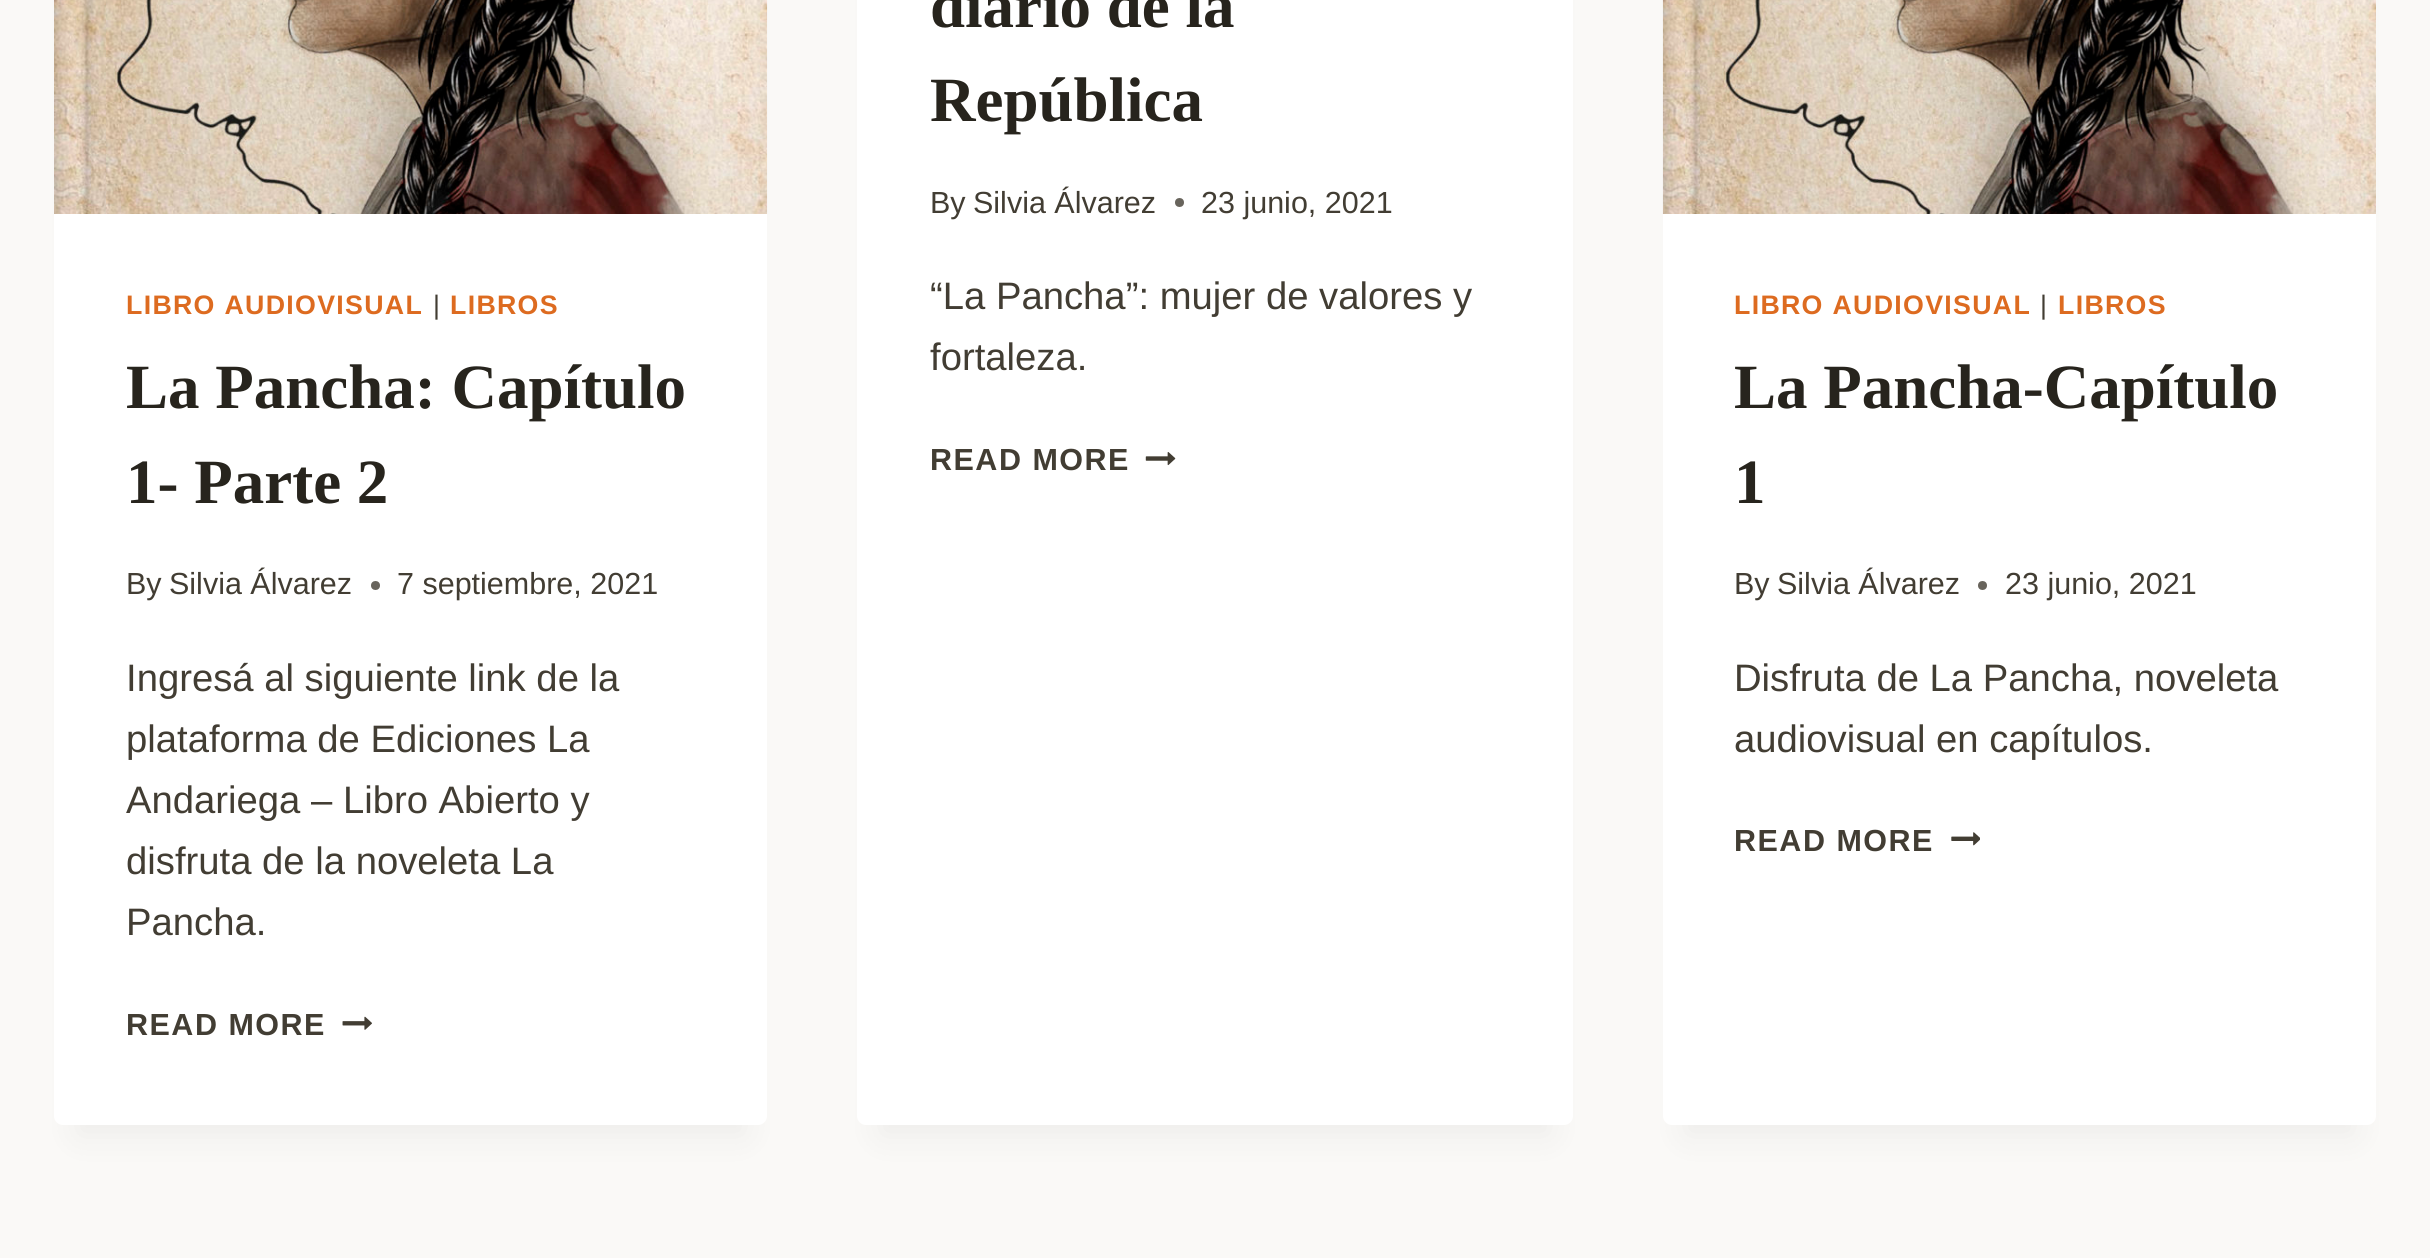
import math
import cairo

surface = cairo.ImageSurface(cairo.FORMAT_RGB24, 2430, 1258)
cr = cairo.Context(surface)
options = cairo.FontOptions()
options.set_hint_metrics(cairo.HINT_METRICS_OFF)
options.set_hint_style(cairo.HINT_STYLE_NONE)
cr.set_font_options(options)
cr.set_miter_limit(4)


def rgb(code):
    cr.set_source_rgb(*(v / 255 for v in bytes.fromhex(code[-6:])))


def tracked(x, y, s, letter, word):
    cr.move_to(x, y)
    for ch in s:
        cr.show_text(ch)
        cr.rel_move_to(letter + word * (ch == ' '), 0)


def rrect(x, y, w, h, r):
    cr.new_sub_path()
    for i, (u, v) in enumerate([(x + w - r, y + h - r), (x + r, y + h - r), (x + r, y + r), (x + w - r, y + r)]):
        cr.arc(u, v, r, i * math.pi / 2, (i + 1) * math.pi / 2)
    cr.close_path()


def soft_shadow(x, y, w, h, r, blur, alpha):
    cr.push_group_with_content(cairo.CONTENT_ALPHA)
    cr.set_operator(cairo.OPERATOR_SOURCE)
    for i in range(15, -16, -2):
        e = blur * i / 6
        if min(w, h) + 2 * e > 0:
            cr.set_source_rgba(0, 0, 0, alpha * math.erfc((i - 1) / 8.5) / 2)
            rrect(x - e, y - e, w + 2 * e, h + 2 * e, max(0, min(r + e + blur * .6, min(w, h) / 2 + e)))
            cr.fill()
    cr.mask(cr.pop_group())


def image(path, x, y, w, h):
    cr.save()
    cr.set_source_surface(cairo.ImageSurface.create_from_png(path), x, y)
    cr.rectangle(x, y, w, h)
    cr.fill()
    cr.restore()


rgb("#faf9f7")
cr.paint()
rgb("#000000")
soft_shadow(880, -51, 670, 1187, 0, 17, 0.05)
rgb("#ffffff")
rrect(857, -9, 716, 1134, 9)
cr.fill()
rgb("#68645c")
cr.arc(1179.5, 202.5, 4.5, 0, 2 * math.pi)
cr.fill()
image("img/1.png", 1145, 452, 31, 14)
rgb("#000000")
soft_shadow(77, -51, 668, 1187, 0, 17, 0.05)
rgb("#ffffff")
rrect(54, -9, 713, 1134, 9)
cr.fill()
image("img/2.png", 54, 0, 714, 214)
rgb("#68645c")
cr.arc(375.5, 585.5, 4.5, 0, 2 * math.pi)
cr.fill()
image("img/3.png", 342, 1016, 30, 14)
rgb("#000000")
soft_shadow(1685, -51, 669, 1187, 0, 17, 0.05)
rgb("#ffffff")
rrect(1663, -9, 713, 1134, 9)
cr.fill()
image("img/4.png", 1662, 0, 714, 214)
rgb("#68645c")
cr.arc(1982.5, 585.5, 4.5, 0, 2 * math.pi)
cr.fill()
image("img/5.png", 1951, 832, 29, 14)
cr.select_font_face("Liberation Serif", cairo.FONT_SLANT_NORMAL, cairo.FONT_WEIGHT_BOLD)
cr.set_font_size(63)
rgb("#27241d")
cr.move_to(930, 27)
cr.show_text("diario de la")
cr.move_to(930, 121)
cr.show_text("República")
cr.select_font_face("Liberation Sans")
cr.set_font_size(30.5)
rgb("#423d33")
for x, y, s in [
    (930, 213, "By"),
    (973, 213, "Silvia Álvarez"),
    (1201, 213, "23 junio, 2021"),
]:
    cr.move_to(x, y)
    cr.show_text(s)
cr.set_font_size(38.25)
cr.move_to(930, 309)
cr.show_text("“La Pancha”: mujer de valores y")
cr.move_to(930, 370)
cr.show_text("fortaleza.")
cr.select_font_face("Liberation Sans", cairo.FONT_SLANT_NORMAL, cairo.FONT_WEIGHT_BOLD)
cr.set_font_size(30.5)
tracked(930, 470, "READ MORE", 1.5, 0)
cr.set_font_size(26.75)
rgb("#dd6b20")
tracked(126, 314, "LIBRO AUDIOVISUAL", 1.3, 0)
cr.select_font_face("Liberation Sans")
rgb("#423d33")
tracked(433, 314, "|", 1.3, 0)
cr.select_font_face("Liberation Sans", cairo.FONT_SLANT_NORMAL, cairo.FONT_WEIGHT_BOLD)
rgb("#dd6b20")
tracked(450, 314, "LIBROS", 1.3, 0)
cr.select_font_face("Liberation Serif", cairo.FONT_SLANT_NORMAL, cairo.FONT_WEIGHT_BOLD)
cr.set_font_size(63)
rgb("#27241d")
cr.move_to(126, 408)
cr.show_text("La Pancha: Capítulo")
cr.move_to(126, 503)
cr.show_text("1- Parte 2")
cr.select_font_face("Liberation Sans")
cr.set_font_size(30.5)
rgb("#423d33")
for x, y, s in [
    (126, 594, "By"),
    (169, 594, "Silvia Álvarez"),
    (397, 594, "7 septiembre, 2021"),
]:
    cr.move_to(x, y)
    cr.show_text(s)
cr.set_font_size(38.25)
for x, y, s in [
    (126, 691, "Ingresá al siguiente link de la"),
    (126, 752, "plataforma de Ediciones La"),
    (126, 813, "Andariega – Libro Abierto y"),
    (126, 874, "disfruta de la noveleta La"),
    (126, 935, "Pancha."),
]:
    cr.move_to(x, y)
    cr.show_text(s)
cr.select_font_face("Liberation Sans", cairo.FONT_SLANT_NORMAL, cairo.FONT_WEIGHT_BOLD)
cr.set_font_size(30.5)
tracked(126, 1035, "READ MORE", 1.5, 0)
cr.set_font_size(26.75)
rgb("#dd6b20")
tracked(1734, 314, "LIBRO AUDIOVISUAL", 1.3, 0)
cr.select_font_face("Liberation Sans")
rgb("#423d33")
tracked(2040, 314, "|", 1.3, 0)
cr.select_font_face("Liberation Sans", cairo.FONT_SLANT_NORMAL, cairo.FONT_WEIGHT_BOLD)
rgb("#dd6b20")
tracked(2058, 314, "LIBROS", 1.3, 0)
cr.select_font_face("Liberation Serif", cairo.FONT_SLANT_NORMAL, cairo.FONT_WEIGHT_BOLD)
cr.set_font_size(63)
rgb("#27241d")
cr.move_to(1734, 408)
cr.show_text("La Pancha-Capítulo")
cr.move_to(1734, 503)
cr.show_text("1")
cr.select_font_face("Liberation Sans")
cr.set_font_size(30.5)
rgb("#423d33")
for x, y, s in [
    (1734, 594, "By"),
    (1777, 594, "Silvia Álvarez"),
    (2005, 594, "23 junio, 2021"),
]:
    cr.move_to(x, y)
    cr.show_text(s)
cr.set_font_size(38.25)
cr.move_to(1734, 691)
cr.show_text("Disfruta de La Pancha, noveleta")
cr.move_to(1734, 752)
cr.show_text("audiovisual en capítulos.")
cr.select_font_face("Liberation Sans", cairo.FONT_SLANT_NORMAL, cairo.FONT_WEIGHT_BOLD)
cr.set_font_size(30.5)
tracked(1734, 851, "READ MORE", 1.5, 0)
surface.write_to_png("page.png")
